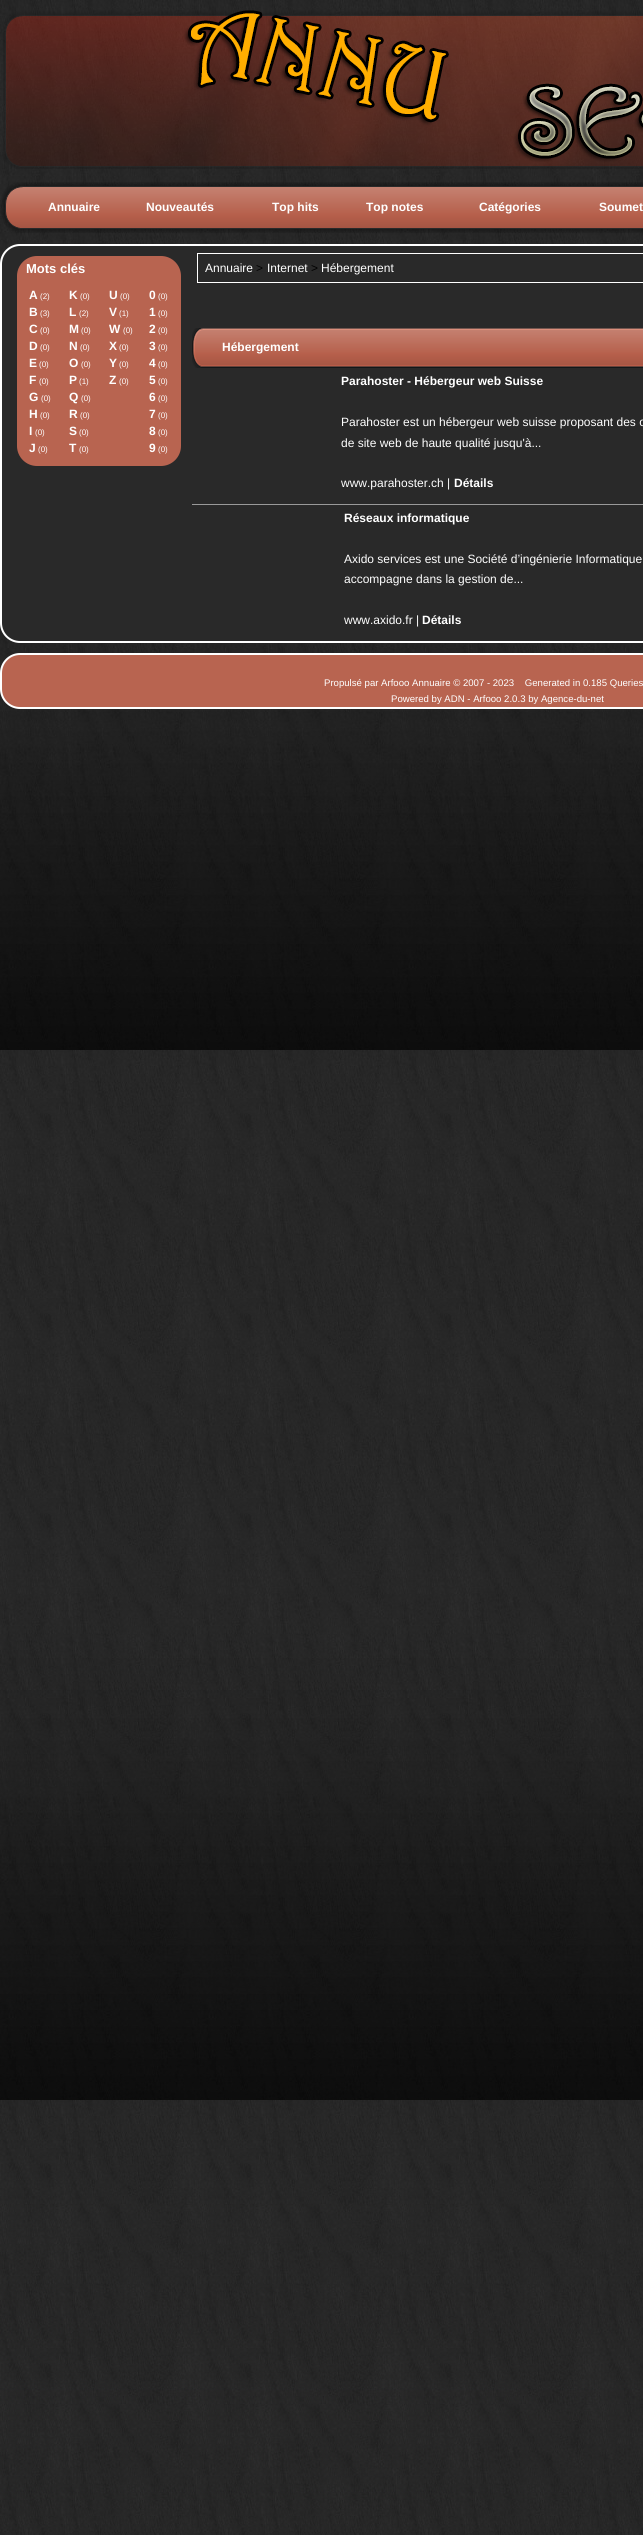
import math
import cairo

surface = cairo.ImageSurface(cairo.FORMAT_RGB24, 643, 2535)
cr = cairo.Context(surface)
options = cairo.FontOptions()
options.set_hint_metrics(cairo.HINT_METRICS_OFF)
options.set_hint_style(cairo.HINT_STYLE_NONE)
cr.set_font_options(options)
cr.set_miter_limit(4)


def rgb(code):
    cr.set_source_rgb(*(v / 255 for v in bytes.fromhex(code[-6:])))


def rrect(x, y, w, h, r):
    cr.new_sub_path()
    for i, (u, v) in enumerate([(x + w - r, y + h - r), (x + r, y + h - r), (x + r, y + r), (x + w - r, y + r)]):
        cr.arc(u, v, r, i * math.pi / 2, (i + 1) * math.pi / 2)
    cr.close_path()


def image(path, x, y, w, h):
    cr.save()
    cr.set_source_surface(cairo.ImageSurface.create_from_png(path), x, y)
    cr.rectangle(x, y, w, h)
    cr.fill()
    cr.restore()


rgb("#ffffff")
cr.paint()
image("img/1.png", 0, 0, 643, 2535)
image("img/2.png", 3, 10, 640, 159)
image("img/3.png", 1, 182, 642, 51)
rgb("#292929")
rrect(1, 245, 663, 397, 19)
cr.fill_preserve()
rgb("#ffffff")
cr.stroke()
rgb("#b86450")
cr.new_path()
cr.move_to(37, 256)
cr.line_to(161, 256)
cr.curve_to(172, 256, 181, 265, 181, 276)
cr.line_to(181, 286)
cr.line_to(17, 286)
cr.line_to(17, 276)
cr.curve_to(17, 265, 26, 256, 37, 256)
cr.close_path()
cr.fill()
cr.new_path()
cr.move_to(17, 286)
cr.line_to(181, 286)
cr.line_to(181, 446)
cr.curve_to(181, 457, 172, 466, 161, 466)
cr.line_to(37, 466)
cr.curve_to(26, 466, 17, 457, 17, 446)
cr.close_path()
cr.fill()
cr.rectangle(197.5, 253.5, 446, 29)
rgb("#ffffff")
cr.set_line_width(1)
cr.stroke()
image("img/4.png", 192, 328, 451, 40)
rgb("#999999")
cr.rectangle(192, 504, 451, 1)
cr.fill()
rgb("#b86450")
rrect(1, 654, 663, 54, 19)
cr.fill_preserve()
rgb("#ffffff")
cr.set_line_width(2)
cr.stroke()
cr.select_font_face("Liberation Sans", cairo.FONT_SLANT_NORMAL, cairo.FONT_WEIGHT_BOLD)
cr.set_font_size(12)
for x, y, s in [
    (48, 211, "Annuaire"),
    (146, 211, "Nouveautés"),
    (272, 211, "Top hits"),
    (366, 211, "Top notes"),
    (479, 211, "Catégories"),
    (599, 211, "Soumet"),
]:
    cr.move_to(x, y)
    cr.show_text(s)
cr.set_font_size(13)
cr.move_to(26, 273)
cr.show_text("Mots clés")
cr.set_font_size(12)
cr.move_to(29, 299)
cr.show_text("A")
cr.select_font_face("Liberation Sans")
cr.set_font_size(8)
cr.move_to(40, 299)
cr.show_text("(2)")
cr.select_font_face("Liberation Sans", cairo.FONT_SLANT_NORMAL, cairo.FONT_WEIGHT_BOLD)
cr.set_font_size(12)
cr.move_to(29, 316)
cr.show_text("B")
cr.select_font_face("Liberation Sans")
cr.set_font_size(8)
cr.move_to(40, 316)
cr.show_text("(3)")
cr.select_font_face("Liberation Sans", cairo.FONT_SLANT_NORMAL, cairo.FONT_WEIGHT_BOLD)
cr.set_font_size(12)
cr.move_to(29, 333)
cr.show_text("C")
cr.select_font_face("Liberation Sans")
cr.set_font_size(8)
cr.move_to(40, 333)
cr.show_text("(0)")
cr.select_font_face("Liberation Sans", cairo.FONT_SLANT_NORMAL, cairo.FONT_WEIGHT_BOLD)
cr.set_font_size(12)
cr.move_to(29, 350)
cr.show_text("D")
cr.select_font_face("Liberation Sans")
cr.set_font_size(8)
cr.move_to(40, 350)
cr.show_text("(0)")
cr.select_font_face("Liberation Sans", cairo.FONT_SLANT_NORMAL, cairo.FONT_WEIGHT_BOLD)
cr.set_font_size(12)
cr.move_to(29, 367)
cr.show_text("E")
cr.select_font_face("Liberation Sans")
cr.set_font_size(8)
cr.move_to(39, 367)
cr.show_text("(0)")
cr.select_font_face("Liberation Sans", cairo.FONT_SLANT_NORMAL, cairo.FONT_WEIGHT_BOLD)
cr.set_font_size(12)
cr.move_to(29, 384)
cr.show_text("F")
cr.select_font_face("Liberation Sans")
cr.set_font_size(8)
cr.move_to(39, 384)
cr.show_text("(0)")
cr.select_font_face("Liberation Sans", cairo.FONT_SLANT_NORMAL, cairo.FONT_WEIGHT_BOLD)
cr.set_font_size(12)
cr.move_to(29, 401)
cr.show_text("G")
cr.select_font_face("Liberation Sans")
cr.set_font_size(8)
cr.move_to(41, 401)
cr.show_text("(0)")
cr.select_font_face("Liberation Sans", cairo.FONT_SLANT_NORMAL, cairo.FONT_WEIGHT_BOLD)
cr.set_font_size(12)
cr.move_to(29, 418)
cr.show_text("H")
cr.select_font_face("Liberation Sans")
cr.set_font_size(8)
cr.move_to(40, 418)
cr.show_text("(0)")
cr.select_font_face("Liberation Sans", cairo.FONT_SLANT_NORMAL, cairo.FONT_WEIGHT_BOLD)
cr.set_font_size(12)
cr.move_to(29, 435)
cr.show_text("I")
cr.select_font_face("Liberation Sans")
cr.set_font_size(8)
cr.move_to(35, 435)
cr.show_text("(0)")
cr.select_font_face("Liberation Sans", cairo.FONT_SLANT_NORMAL, cairo.FONT_WEIGHT_BOLD)
cr.set_font_size(12)
cr.move_to(29, 452)
cr.show_text("J")
cr.select_font_face("Liberation Sans")
cr.set_font_size(8)
cr.move_to(38, 452)
cr.show_text("(0)")
cr.select_font_face("Liberation Sans", cairo.FONT_SLANT_NORMAL, cairo.FONT_WEIGHT_BOLD)
cr.set_font_size(12)
cr.move_to(69, 299)
cr.show_text("K")
cr.select_font_face("Liberation Sans")
cr.set_font_size(8)
cr.move_to(80, 299)
cr.show_text("(0)")
cr.select_font_face("Liberation Sans", cairo.FONT_SLANT_NORMAL, cairo.FONT_WEIGHT_BOLD)
cr.set_font_size(12)
cr.move_to(69, 316)
cr.show_text("L")
cr.select_font_face("Liberation Sans")
cr.set_font_size(8)
cr.move_to(79, 316)
cr.show_text("(2)")
cr.select_font_face("Liberation Sans", cairo.FONT_SLANT_NORMAL, cairo.FONT_WEIGHT_BOLD)
cr.set_font_size(12)
cr.move_to(69, 333)
cr.show_text("M")
cr.select_font_face("Liberation Sans")
cr.set_font_size(8)
cr.move_to(81, 333)
cr.show_text("(0)")
cr.select_font_face("Liberation Sans", cairo.FONT_SLANT_NORMAL, cairo.FONT_WEIGHT_BOLD)
cr.set_font_size(12)
cr.move_to(69, 350)
cr.show_text("N")
cr.select_font_face("Liberation Sans")
cr.set_font_size(8)
cr.move_to(80, 350)
cr.show_text("(0)")
cr.select_font_face("Liberation Sans", cairo.FONT_SLANT_NORMAL, cairo.FONT_WEIGHT_BOLD)
cr.set_font_size(12)
cr.move_to(69, 367)
cr.show_text("O")
cr.select_font_face("Liberation Sans")
cr.set_font_size(8)
cr.move_to(81, 367)
cr.show_text("(0)")
cr.select_font_face("Liberation Sans", cairo.FONT_SLANT_NORMAL, cairo.FONT_WEIGHT_BOLD)
cr.set_font_size(12)
cr.move_to(69, 384)
cr.show_text("P")
cr.select_font_face("Liberation Sans")
cr.set_font_size(8)
cr.move_to(79, 384)
cr.show_text("(1)")
cr.select_font_face("Liberation Sans", cairo.FONT_SLANT_NORMAL, cairo.FONT_WEIGHT_BOLD)
cr.set_font_size(12)
cr.move_to(69, 401)
cr.show_text("Q")
cr.select_font_face("Liberation Sans")
cr.set_font_size(8)
cr.move_to(81, 401)
cr.show_text("(0)")
cr.select_font_face("Liberation Sans", cairo.FONT_SLANT_NORMAL, cairo.FONT_WEIGHT_BOLD)
cr.set_font_size(12)
cr.move_to(69, 418)
cr.show_text("R")
cr.select_font_face("Liberation Sans")
cr.set_font_size(8)
cr.move_to(80, 418)
cr.show_text("(0)")
cr.select_font_face("Liberation Sans", cairo.FONT_SLANT_NORMAL, cairo.FONT_WEIGHT_BOLD)
cr.set_font_size(12)
cr.move_to(69, 435)
cr.show_text("S")
cr.select_font_face("Liberation Sans")
cr.set_font_size(8)
cr.move_to(79, 435)
cr.show_text("(0)")
cr.select_font_face("Liberation Sans", cairo.FONT_SLANT_NORMAL, cairo.FONT_WEIGHT_BOLD)
cr.set_font_size(12)
cr.move_to(69, 452)
cr.show_text("T")
cr.select_font_face("Liberation Sans")
cr.set_font_size(8)
cr.move_to(79, 452)
cr.show_text("(0)")
cr.select_font_face("Liberation Sans", cairo.FONT_SLANT_NORMAL, cairo.FONT_WEIGHT_BOLD)
cr.set_font_size(12)
cr.move_to(109, 299)
cr.show_text("U")
cr.select_font_face("Liberation Sans")
cr.set_font_size(8)
cr.move_to(120, 299)
cr.show_text("(0)")
cr.select_font_face("Liberation Sans", cairo.FONT_SLANT_NORMAL, cairo.FONT_WEIGHT_BOLD)
cr.set_font_size(12)
cr.move_to(109, 316)
cr.show_text("V")
cr.select_font_face("Liberation Sans")
cr.set_font_size(8)
cr.move_to(119, 316)
cr.show_text("(1)")
cr.select_font_face("Liberation Sans", cairo.FONT_SLANT_NORMAL, cairo.FONT_WEIGHT_BOLD)
cr.set_font_size(12)
cr.move_to(109, 333)
cr.show_text("W")
cr.select_font_face("Liberation Sans")
cr.set_font_size(8)
cr.move_to(123, 333)
cr.show_text("(0)")
cr.select_font_face("Liberation Sans", cairo.FONT_SLANT_NORMAL, cairo.FONT_WEIGHT_BOLD)
cr.set_font_size(12)
cr.move_to(109, 350)
cr.show_text("X")
cr.select_font_face("Liberation Sans")
cr.set_font_size(8)
cr.move_to(119, 350)
cr.show_text("(0)")
cr.select_font_face("Liberation Sans", cairo.FONT_SLANT_NORMAL, cairo.FONT_WEIGHT_BOLD)
cr.set_font_size(12)
cr.move_to(109, 367)
cr.show_text("Y")
cr.select_font_face("Liberation Sans")
cr.set_font_size(8)
cr.move_to(119, 367)
cr.show_text("(0)")
cr.select_font_face("Liberation Sans", cairo.FONT_SLANT_NORMAL, cairo.FONT_WEIGHT_BOLD)
cr.set_font_size(12)
cr.move_to(109, 384)
cr.show_text("Z")
cr.select_font_face("Liberation Sans")
cr.set_font_size(8)
cr.move_to(119, 384)
cr.show_text("(0)")
cr.select_font_face("Liberation Sans", cairo.FONT_SLANT_NORMAL, cairo.FONT_WEIGHT_BOLD)
cr.set_font_size(12)
cr.move_to(149, 299)
cr.show_text("0")
cr.select_font_face("Liberation Sans")
cr.set_font_size(8)
cr.move_to(158, 299)
cr.show_text("(0)")
cr.select_font_face("Liberation Sans", cairo.FONT_SLANT_NORMAL, cairo.FONT_WEIGHT_BOLD)
cr.set_font_size(12)
cr.move_to(149, 316)
cr.show_text("1")
cr.select_font_face("Liberation Sans")
cr.set_font_size(8)
cr.move_to(158, 316)
cr.show_text("(0)")
cr.select_font_face("Liberation Sans", cairo.FONT_SLANT_NORMAL, cairo.FONT_WEIGHT_BOLD)
cr.set_font_size(12)
cr.move_to(149, 333)
cr.show_text("2")
cr.select_font_face("Liberation Sans")
cr.set_font_size(8)
cr.move_to(158, 333)
cr.show_text("(0)")
cr.select_font_face("Liberation Sans", cairo.FONT_SLANT_NORMAL, cairo.FONT_WEIGHT_BOLD)
cr.set_font_size(12)
cr.move_to(149, 350)
cr.show_text("3")
cr.select_font_face("Liberation Sans")
cr.set_font_size(8)
cr.move_to(158, 350)
cr.show_text("(0)")
cr.select_font_face("Liberation Sans", cairo.FONT_SLANT_NORMAL, cairo.FONT_WEIGHT_BOLD)
cr.set_font_size(12)
cr.move_to(149, 367)
cr.show_text("4")
cr.select_font_face("Liberation Sans")
cr.set_font_size(8)
cr.move_to(158, 367)
cr.show_text("(0)")
cr.select_font_face("Liberation Sans", cairo.FONT_SLANT_NORMAL, cairo.FONT_WEIGHT_BOLD)
cr.set_font_size(12)
cr.move_to(149, 384)
cr.show_text("5")
cr.select_font_face("Liberation Sans")
cr.set_font_size(8)
cr.move_to(158, 384)
cr.show_text("(0)")
cr.select_font_face("Liberation Sans", cairo.FONT_SLANT_NORMAL, cairo.FONT_WEIGHT_BOLD)
cr.set_font_size(12)
cr.move_to(149, 401)
cr.show_text("6")
cr.select_font_face("Liberation Sans")
cr.set_font_size(8)
cr.move_to(158, 401)
cr.show_text("(0)")
cr.select_font_face("Liberation Sans", cairo.FONT_SLANT_NORMAL, cairo.FONT_WEIGHT_BOLD)
cr.set_font_size(12)
cr.move_to(149, 418)
cr.show_text("7")
cr.select_font_face("Liberation Sans")
cr.set_font_size(8)
cr.move_to(158, 418)
cr.show_text("(0)")
cr.select_font_face("Liberation Sans", cairo.FONT_SLANT_NORMAL, cairo.FONT_WEIGHT_BOLD)
cr.set_font_size(12)
cr.move_to(149, 435)
cr.show_text("8")
cr.select_font_face("Liberation Sans")
cr.set_font_size(8)
cr.move_to(158, 435)
cr.show_text("(0)")
cr.select_font_face("Liberation Sans", cairo.FONT_SLANT_NORMAL, cairo.FONT_WEIGHT_BOLD)
cr.set_font_size(12)
cr.move_to(149, 452)
cr.show_text("9")
cr.select_font_face("Liberation Sans")
cr.set_font_size(8)
cr.move_to(158, 452)
cr.show_text("(0)")
cr.set_font_size(12)
cr.move_to(205, 272)
cr.show_text("Annuaire")
rgb("#000000")
cr.move_to(256, 272)
cr.show_text(">")
rgb("#ffffff")
cr.move_to(267, 272)
cr.show_text("Internet")
rgb("#000000")
cr.move_to(311, 272)
cr.show_text(">")
rgb("#ffffff")
cr.move_to(321, 272)
cr.show_text("Hébergement")
cr.select_font_face("Liberation Sans", cairo.FONT_SLANT_NORMAL, cairo.FONT_WEIGHT_BOLD)
cr.move_to(222, 351)
cr.show_text("Hébergement")
cr.move_to(341, 385)
cr.show_text("Parahoster - Hébergeur web Suisse")
cr.select_font_face("Liberation Sans")
for x, y, s in [
    (341, 426, "Parahoster est un hébergeur web suisse proposant des o"),
    (341, 447, "de site web de haute qualité jusqu'à..."),
    (341, 487, "www.parahoster.ch |"),
]:
    cr.move_to(x, y)
    cr.show_text(s)
cr.select_font_face("Liberation Sans", cairo.FONT_SLANT_NORMAL, cairo.FONT_WEIGHT_BOLD)
cr.move_to(454, 487)
cr.show_text("Détails")
cr.move_to(344, 522)
cr.show_text("Réseaux informatique")
cr.select_font_face("Liberation Sans")
for x, y, s in [
    (344, 563, "Axido services est une Société d’ingénierie Informatique"),
    (344, 583, "accompagne dans la gestion de..."),
    (344, 624, "www.axido.fr |"),
]:
    cr.move_to(x, y)
    cr.show_text(s)
cr.select_font_face("Liberation Sans", cairo.FONT_SLANT_NORMAL, cairo.FONT_WEIGHT_BOLD)
cr.move_to(422, 624)
cr.show_text("Détails")
cr.select_font_face("Liberation Sans")
cr.set_font_size(9.6)
cr.move_to(324, 686)
cr.show_text("Propulsé par Arfooo Annuaire © 2007 - 2023    Generated in 0.185 Queries")
cr.move_to(391, 702)
cr.show_text("Powered by ADN - Arfooo 2.0.3 by Agence-du-net")
surface.write_to_png("page.png")
